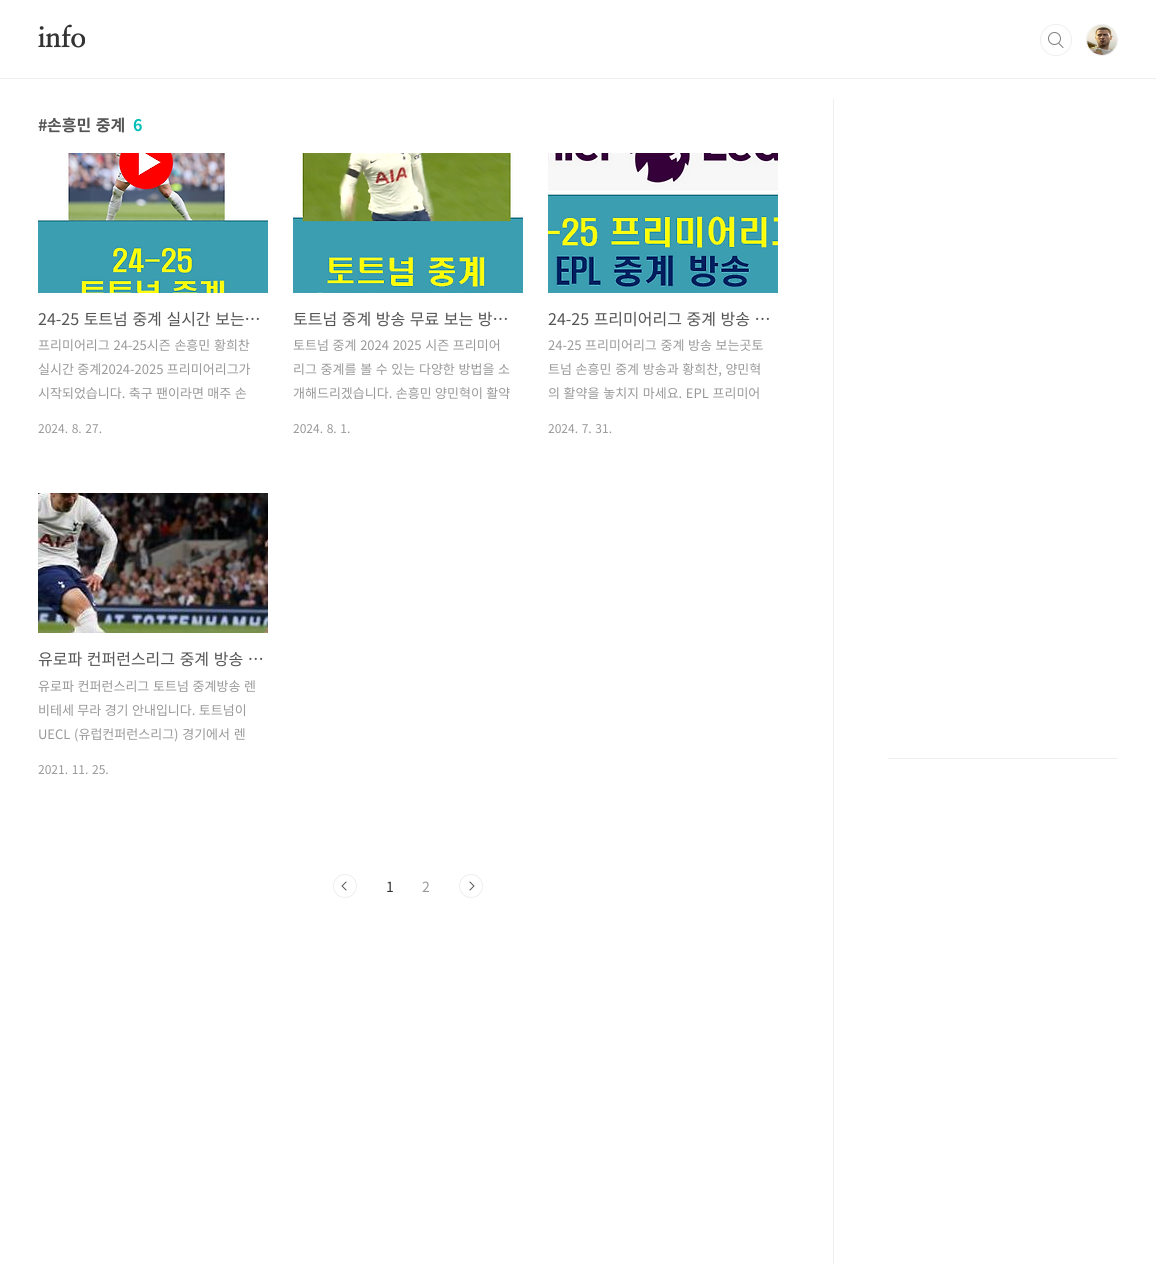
import math
import cairo

surface = cairo.ImageSurface(cairo.FORMAT_RGB24, 1156, 1264)
cr = cairo.Context(surface)
options = cairo.FontOptions()
options.set_hint_metrics(cairo.HINT_METRICS_OFF)
options.set_hint_style(cairo.HINT_STYLE_NONE)
cr.set_font_options(options)
cr.set_miter_limit(4)


def rgb(code):
    cr.set_source_rgb(*(v / 255 for v in bytes.fromhex(code[-6:])))


def tracked(x, y, s, letter, word):
    cr.move_to(x, y)
    for ch in s:
        cr.show_text(ch)
        cr.rel_move_to(letter + word * (ch == ' '), 0)


def image(path, x, y, w, h):
    cr.save()
    cr.set_source_surface(cairo.ImageSurface.create_from_png(path), x, y)
    cr.rectangle(x, y, w, h)
    cr.fill()
    cr.restore()


rgb("#ffffff")
cr.paint()
rgb("#eeeeee")
cr.rectangle(0, 78, 1156, 1)
cr.fill()
cr.arc(1056, 40, 14.5, 0, 2 * math.pi)
cr.set_line_width(1)
cr.stroke()
rgb("#ffffff")
cr.arc(1056, 40, 16, 0, 2 * math.pi)
cr.fill()
image("img/1.png", 1048, 32, 16, 16)
cr.arc(1056, 40, 15.5, 0, 2 * math.pi)
rgb("#eeeeee")
cr.stroke()
cr.arc(1102, 40, 15.5, 0, 2 * math.pi)
cr.stroke()
image("img/2.png", 1087, 25, 30, 30)
image("img/3.png", 38, 153, 230, 140)
image("img/4.png", 293, 153, 230, 140)
image("img/5.png", 548, 153, 230, 140)
image("img/6.png", 38, 493, 230, 140)
image("img/7.png", 341, 881, 6, 10)
cr.arc(345, 886, 11.5, 0, 2 * math.pi)
cr.stroke()
image("img/8.png", 469, 881, 6, 10)
cr.arc(471, 886, 11.5, 0, 2 * math.pi)
cr.stroke()
cr.rectangle(833, 99, 1, 1165)
cr.fill()
cr.rectangle(888, 758, 230, 1)
cr.fill()
cr.select_font_face("NanumMyeongjo ExtraBold")
cr.set_font_size(28)
rgb("#333333")
cr.move_to(38, 47)
cr.show_text("info")
cr.select_font_face("Noto Sans KR", cairo.FONT_SLANT_NORMAL, cairo.FONT_WEIGHT_BOLD)
cr.set_font_size(16)
rgb("#555555")
cr.move_to(38, 131)
cr.show_text("#")
tracked(47, 131, "손흥민 중계", 0, 1)
rgb("#04beb8")
cr.move_to(133, 131)
cr.show_text("6")
cr.select_font_face("Noto Sans KR")
rgb("#555555")
tracked(38, 325, "24-25 토트넘 중계 실시간 보는…", 0, 1)
cr.set_font_size(13)
rgb("#999999")
tracked(38, 350, "프리미어리그 24-25시즌 손흥민 황희찬", 0, 0.75)
tracked(38, 374, "실시간 중계2024-2025 프리미어리그가", 0, 0.5)
tracked(38, 398, "시작되었습니다. 축구 팬이라면 매주 손", 0, 0.5)
cr.set_font_size(12)
tracked(38, 433, "2024. 8. 27.", 0, 1)
cr.set_font_size(16)
rgb("#555555")
tracked(293, 325, "토트넘 중계 방송 무료 보는 방…", 0, 1)
cr.set_font_size(13)
rgb("#999999")
tracked(293, 350, "토트넘 중계 2024 2025 시즌 프리미어", 0, 0.75)
tracked(293, 374, "리그 중계를 볼 수 있는 다양한 방법을 소", 0, 0.75)
tracked(293, 398, "개해드리겠습니다. 손흥민 양민혁이 활약", 0, 0.5)
cr.set_font_size(12)
tracked(293, 433, "2024. 8. 1.", 0, 1)
cr.set_font_size(16)
rgb("#555555")
tracked(548, 325, "24-25 프리미어리그 중계 방송 …", 0, 1)
cr.set_font_size(13)
rgb("#999999")
for x, y, s in [
    (548, 350, "24-25 프리미어리그 중계 방송 보는곳토"),
    (548, 374, "트넘 손흥민 중계 방송과 황희찬, 양민혁"),
    (548, 398, "의 활약을 놓치지 마세요. EPL 프리미어"),
]:
    tracked(x, y, s, 0, 0.75)
cr.set_font_size(12)
tracked(548, 433, "2024. 7. 31.", 0, 1)
cr.set_font_size(16)
rgb("#555555")
tracked(38, 665, "유로파 컨퍼런스리그 중계 방송 …", 0, 1)
cr.set_font_size(13)
rgb("#999999")
tracked(38, 691, "유로파 컨퍼런스리그 토트넘 중계방송 렌", 0, 0.75)
tracked(38, 715, "비테세 무라 경기 안내입니다. 토트넘이", 0, 0.5)
tracked(38, 739, "UECL (유럽컨퍼런스리그) 경기에서 렌", 0, 0.75)
cr.set_font_size(12)
tracked(38, 774, "2021. 11. 25.", 0, 1)
cr.set_font_size(14)
rgb("#333333")
cr.move_to(386, 892)
cr.show_text("1")
rgb("#999999")
cr.move_to(422, 892)
cr.show_text("2")
surface.write_to_png("page.png")
